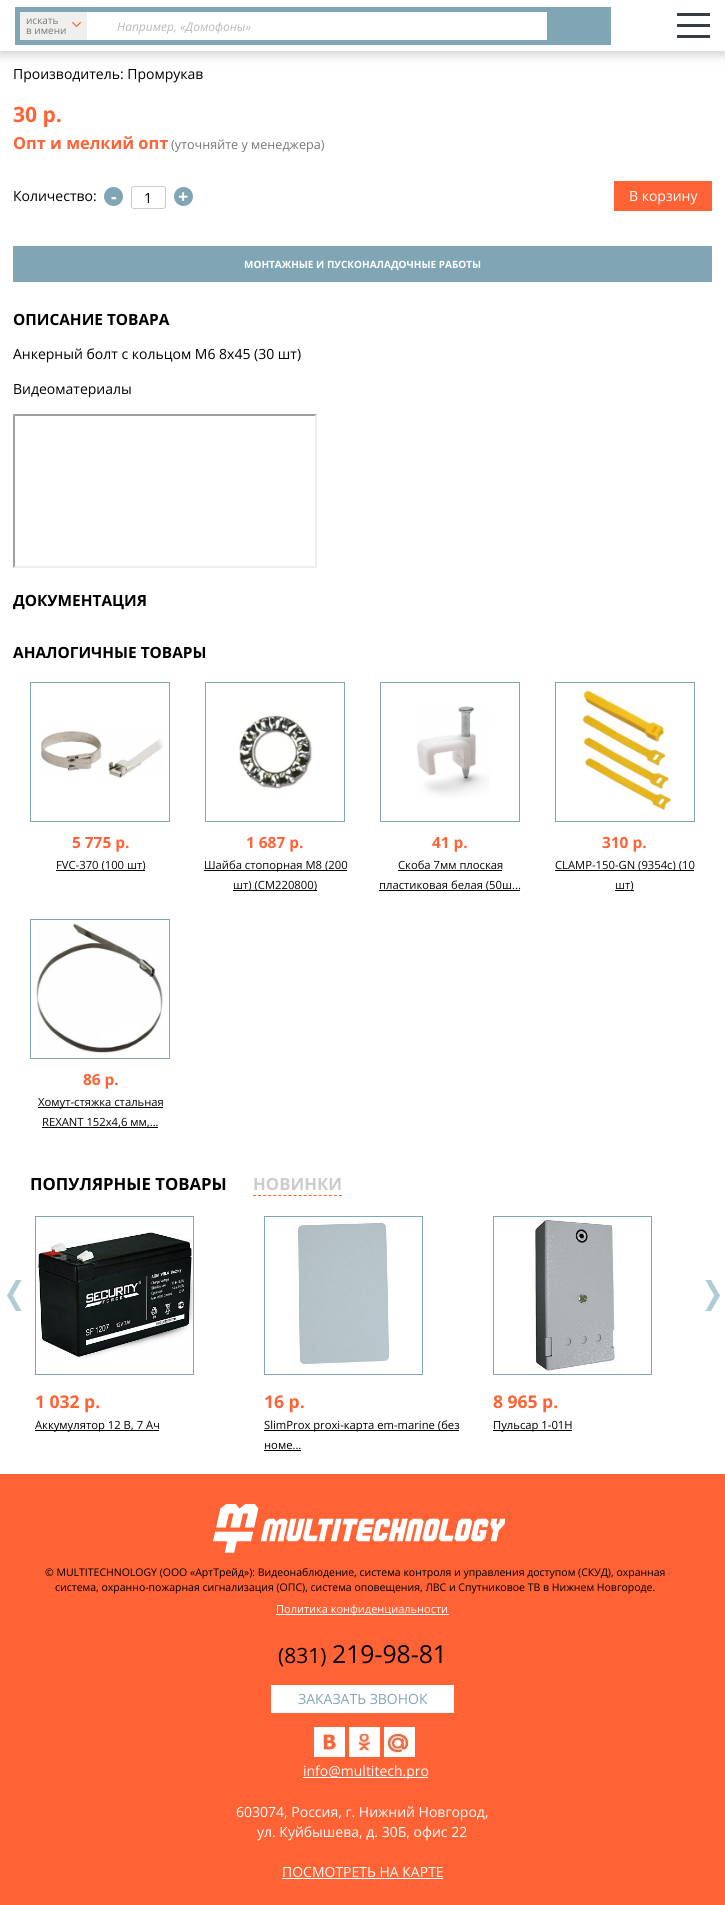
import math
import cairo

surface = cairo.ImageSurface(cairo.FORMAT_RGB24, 725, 1905)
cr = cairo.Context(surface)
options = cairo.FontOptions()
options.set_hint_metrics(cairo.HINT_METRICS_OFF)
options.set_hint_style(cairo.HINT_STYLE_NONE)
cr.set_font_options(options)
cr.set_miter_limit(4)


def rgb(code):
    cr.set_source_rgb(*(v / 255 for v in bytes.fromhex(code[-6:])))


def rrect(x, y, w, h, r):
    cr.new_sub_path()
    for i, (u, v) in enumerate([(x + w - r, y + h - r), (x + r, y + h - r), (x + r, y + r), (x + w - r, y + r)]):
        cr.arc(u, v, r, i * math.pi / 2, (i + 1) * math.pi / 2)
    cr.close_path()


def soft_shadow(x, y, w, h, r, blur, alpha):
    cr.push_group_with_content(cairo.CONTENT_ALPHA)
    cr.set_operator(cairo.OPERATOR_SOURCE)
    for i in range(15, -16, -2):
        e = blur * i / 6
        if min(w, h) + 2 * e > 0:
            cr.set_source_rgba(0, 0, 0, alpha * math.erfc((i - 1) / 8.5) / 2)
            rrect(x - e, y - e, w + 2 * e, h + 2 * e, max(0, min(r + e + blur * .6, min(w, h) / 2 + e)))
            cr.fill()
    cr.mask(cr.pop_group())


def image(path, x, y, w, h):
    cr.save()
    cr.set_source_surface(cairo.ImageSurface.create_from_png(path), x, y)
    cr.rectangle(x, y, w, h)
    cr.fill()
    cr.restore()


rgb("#ffffff")
cr.paint()
rgb("#000000")
soft_shadow(0, 4, 725, 51, 0, 5, 0.18)
for x, y, w, h, color in [
    (0, 0, 725, 51, "#ffffff"),
    (15, 7, 596, 38, "#80a5b5"),
    (20, 12, 67, 28, "#efefed"),
]:
    rgb(color)
    cr.rectangle(x, y, w, h)
    cr.fill()
image("img/1.png", 72, 21, 9, 7)
for x, y, w, h, color in [
    (87, 12, 460, 28, "#ffffff"),
    (677, 13, 33, 3, "#373c42"),
    (677, 24, 33, 3, "#373c42"),
    (677, 35, 33, 3, "#373c42"),
]:
    rgb(color)
    cr.rectangle(x, y, w, h)
    cr.fill()
rgb("#80a5b5")
cr.arc(113.5, 196.5, 9.5, 0, 2 * math.pi)
cr.fill()
rrect(131.5, 186.5, 34, 22, 2.5)
rgb("#cccccc")
cr.set_line_width(1)
cr.stroke()
rgb("#80a5b5")
cr.arc(183.5, 196.5, 9.5, 0, 2 * math.pi)
cr.fill()
rgb("#ff6235")
cr.rectangle(614, 181, 98, 30)
cr.fill()
rgb("#80a5b5")
cr.rectangle(13, 246, 699, 36)
cr.fill()
rgb("#9f9f9f")
cr.new_path()
cr.move_to(13, 414)
cr.line_to(317, 414)
cr.line_to(315, 416)
cr.line_to(15, 416)
cr.close_path()
cr.fill()
rgb("#eeeeee")
cr.new_path()
cr.move_to(317, 414)
cr.line_to(317, 568)
cr.line_to(315, 566)
cr.line_to(315, 416)
cr.close_path()
cr.fill()
cr.new_path()
cr.move_to(317, 568)
cr.line_to(13, 568)
cr.line_to(15, 566)
cr.line_to(315, 566)
cr.close_path()
cr.fill()
rgb("#9f9f9f")
cr.new_path()
cr.move_to(13, 568)
cr.line_to(13, 414)
cr.line_to(15, 416)
cr.line_to(15, 566)
cr.close_path()
cr.fill()
cr.rectangle(30.5, 682.5, 139, 139)
rgb("#80a5b5")
cr.stroke()
image("img/2.png", 40, 730, 124, 48)
rgb("#080808")
cr.rectangle(56, 870, 89, 1)
cr.fill()
cr.rectangle(205.5, 682.5, 139, 139)
rgb("#80a5b5")
cr.stroke()
image("img/3.png", 238, 714, 76, 76)
rgb("#080808")
cr.rectangle(204, 870, 143, 1)
cr.fill()
cr.rectangle(233, 890, 84, 1)
cr.fill()
cr.rectangle(380.5, 682.5, 139, 139)
rgb("#80a5b5")
cr.stroke()
image("img/4.png", 416, 706, 74, 92)
rgb("#080808")
cr.rectangle(398, 870, 104, 1)
cr.fill()
cr.rectangle(379, 890, 141, 1)
cr.fill()
cr.rectangle(555.5, 682.5, 139, 139)
rgb("#80a5b5")
cr.stroke()
image("img/5.png", 580, 686, 92, 125)
rgb("#080808")
cr.rectangle(555, 870, 139, 1)
cr.fill()
cr.rectangle(615, 890, 19, 1)
cr.fill()
cr.rectangle(30.5, 919.5, 139, 139)
rgb("#80a5b5")
cr.stroke()
image("img/6.png", 36, 923, 127, 130)
rgb("#080808")
cr.rectangle(38, 1107, 125, 1)
cr.fill()
cr.rectangle(42, 1127, 116, 1)
cr.fill()
cr.new_path()
cr.move_to(253, 1195.5)
cr.line_to(342, 1195.5)
rgb("#ff6235")
cr.set_dash([3, 2.06])
cr.stroke()
image("img/7.png", 7, 1280, 15, 31)
image("img/8.png", 705, 1280, 15, 31)
cr.rectangle(35.5, 1216.5, 158, 158)
rgb("#80a5b5")
cr.set_dash([])
cr.stroke()
image("img/9.png", 36, 1230, 157, 130)
rgb("#000000")
cr.rectangle(35, 1430, 124, 1)
cr.fill()
cr.rectangle(264.5, 1216.5, 158, 158)
rgb("#80a5b5")
cr.stroke()
image("img/10.png", 291, 1222, 100, 145)
rgb("#000000")
cr.rectangle(264, 1430, 195, 1)
cr.fill()
cr.rectangle(264, 1450, 37, 1)
cr.fill()
cr.rectangle(493.5, 1216.5, 158, 158)
rgb("#80a5b5")
cr.stroke()
image("img/11.png", 532, 1217, 84, 154)
rgb("#000000")
cr.rectangle(493, 1430, 79, 1)
cr.fill()
rgb("#ff6235")
cr.rectangle(0, 1474, 725, 431)
cr.fill()
image("img/12.png", 213, 1504, 292, 49)
rgb("#ffffff")
cr.rectangle(276, 1614, 173, 1)
cr.fill()
cr.rectangle(271, 1685, 183, 28)
cr.fill()
image("img/13.png", 314, 1727, 31, 30)
image("img/14.png", 349, 1727, 31, 30)
image("img/15.png", 384, 1727, 31, 30)
cr.rectangle(303, 1777, 125, 1)
cr.fill()
cr.rectangle(282, 1878, 161, 1)
cr.fill()
cr.select_font_face("Open Sans")
cr.set_font_size(10)
rgb("#777777")
cr.move_to(26, 24)
cr.show_text("искать")
cr.move_to(26, 34)
cr.show_text("в имени")
cr.select_font_face("Open Sans", cairo.FONT_SLANT_ITALIC)
cr.set_font_size(12)
rgb("#b9b9b9")
cr.move_to(117, 31)
cr.show_text("Например, «Домофоны»")
cr.select_font_face("Open Sans")
cr.set_font_size(14)
rgb("#000000")
cr.move_to(13, 79)
cr.show_text("Производитель: Промрукав")
cr.select_font_face("Open Sans", cairo.FONT_SLANT_NORMAL, cairo.FONT_WEIGHT_BOLD)
cr.set_font_size(21)
rgb("#ff6235")
cr.move_to(13, 122)
cr.show_text("30 р.")
cr.set_font_size(16.4)
cr.move_to(13, 149)
cr.show_text("Опт и мелкий опт")
cr.select_font_face("Open Sans")
cr.set_font_size(12.6)
rgb("#777777")
cr.move_to(171, 149)
cr.show_text("(уточняйте у менеджера)")
cr.set_font_size(14)
rgb("#000000")
cr.move_to(13, 201)
cr.show_text("Количество:")
cr.select_font_face("Open Sans", cairo.FONT_SLANT_NORMAL, cairo.FONT_WEIGHT_BOLD)
cr.set_font_size(18)
rgb("#ffffff")
cr.move_to(111, 203)
cr.show_text("-")
cr.select_font_face("Open Sans")
cr.set_font_size(14)
rgb("#000000")
cr.move_to(144, 203)
cr.show_text("1")
cr.select_font_face("Open Sans", cairo.FONT_SLANT_NORMAL, cairo.FONT_WEIGHT_BOLD)
cr.set_font_size(18)
rgb("#ffffff")
cr.move_to(178, 203)
cr.show_text("+")
cr.select_font_face("Open Sans")
cr.set_font_size(14)
cr.move_to(629, 201)
cr.show_text("В корзину")
cr.select_font_face("Open Sans", cairo.FONT_SLANT_NORMAL, cairo.FONT_WEIGHT_BOLD)
cr.set_font_size(10)
cr.move_to(244, 268)
cr.show_text("МОНТАЖНЫЕ И ПУСКОНАЛАДОЧНЫЕ РАБОТЫ")
cr.set_font_size(15.4)
rgb("#000000")
cr.move_to(13, 325)
cr.show_text("ОПИСАНИЕ ТОВАРА")
cr.select_font_face("Open Sans")
cr.set_font_size(14)
cr.move_to(13, 359)
cr.show_text("Анкерный болт с кольцом М6 8х45 (30 шт)")
cr.move_to(13, 394)
cr.show_text("Видеоматериалы")
cr.select_font_face("Open Sans", cairo.FONT_SLANT_NORMAL, cairo.FONT_WEIGHT_BOLD)
cr.set_font_size(15.4)
cr.move_to(13, 606)
cr.show_text("ДОКУМЕНТАЦИЯ")
cr.move_to(13, 658)
cr.show_text("АНАЛОГИЧНЫЕ ТОВАРЫ")
rgb("#ff6235")
cr.move_to(72, 848)
cr.show_text("5 775 р.")
cr.select_font_face("Open Sans")
cr.set_font_size(11.25)
rgb("#080808")
cr.move_to(56, 869)
cr.show_text("FVC-370 (100 шт)")
cr.select_font_face("Open Sans", cairo.FONT_SLANT_NORMAL, cairo.FONT_WEIGHT_BOLD)
cr.set_font_size(15.4)
rgb("#ff6235")
cr.move_to(246, 848)
cr.show_text("1 687 р.")
cr.select_font_face("Open Sans")
cr.set_font_size(11.25)
rgb("#080808")
cr.move_to(204, 869)
cr.show_text("Шайба стопорная М8 (200")
cr.move_to(233, 889)
cr.show_text("шт) (CM220800)")
cr.select_font_face("Open Sans", cairo.FONT_SLANT_NORMAL, cairo.FONT_WEIGHT_BOLD)
cr.set_font_size(15.4)
rgb("#ff6235")
cr.move_to(432, 848)
cr.show_text("41 р.")
cr.select_font_face("Open Sans")
cr.set_font_size(11.25)
rgb("#080808")
cr.move_to(398, 869)
cr.show_text("Скоба 7мм плоская")
cr.move_to(379, 889)
cr.show_text("пластиковая белая (50ш...")
cr.select_font_face("Open Sans", cairo.FONT_SLANT_NORMAL, cairo.FONT_WEIGHT_BOLD)
cr.set_font_size(15.4)
rgb("#ff6235")
cr.move_to(602, 848)
cr.show_text("310 р.")
cr.select_font_face("Open Sans")
cr.set_font_size(11.25)
rgb("#080808")
cr.move_to(555, 869)
cr.show_text("CLAMP-150-GN (9354c) (10")
cr.move_to(615, 889)
cr.show_text("шт)")
cr.select_font_face("Open Sans", cairo.FONT_SLANT_NORMAL, cairo.FONT_WEIGHT_BOLD)
cr.set_font_size(15.4)
rgb("#ff6235")
cr.move_to(83, 1085)
cr.show_text("86 р.")
cr.select_font_face("Open Sans")
cr.set_font_size(11.25)
rgb("#080808")
cr.move_to(38, 1106)
cr.show_text("Хомут-стяжка стальная")
cr.move_to(42, 1126)
cr.show_text("REXANT 152x4,6 мм,...")
cr.select_font_face("Open Sans", cairo.FONT_SLANT_NORMAL, cairo.FONT_WEIGHT_BOLD)
cr.set_font_size(16.75)
rgb("#000000")
cr.move_to(30, 1190)
cr.show_text("ПОПУЛЯРНЫЕ ТОВАРЫ")
rgb("#cccccc")
cr.move_to(253, 1190)
cr.show_text("НОВИНКИ")
cr.set_font_size(17.5)
rgb("#ff6235")
cr.move_to(35, 1408)
cr.show_text("1 032 р.")
cr.select_font_face("Open Sans")
cr.set_font_size(11.25)
rgb("#000000")
cr.move_to(35, 1429)
cr.show_text("Аккумулятор 12 В, 7 Ач")
cr.select_font_face("Open Sans", cairo.FONT_SLANT_NORMAL, cairo.FONT_WEIGHT_BOLD)
cr.set_font_size(17.5)
rgb("#ff6235")
cr.move_to(264, 1408)
cr.show_text("16 р.")
cr.select_font_face("Open Sans")
cr.set_font_size(11.25)
rgb("#000000")
cr.move_to(264, 1429)
cr.show_text("SlimProx proxi-карта em-marine (без")
cr.move_to(264, 1449)
cr.show_text("номе...")
cr.select_font_face("Open Sans", cairo.FONT_SLANT_NORMAL, cairo.FONT_WEIGHT_BOLD)
cr.set_font_size(17.5)
rgb("#ff6235")
cr.move_to(493, 1408)
cr.show_text("8 965 р.")
cr.select_font_face("Open Sans")
cr.set_font_size(11.25)
rgb("#000000")
cr.move_to(493, 1429)
cr.show_text("Пульсар 1-01Н")
cr.set_font_size(10.5)
cr.move_to(45, 1576)
cr.show_text("© MULTITECHNOLOGY (ООО «АртТрейд»): Видеонаблюдение, система контроля и управления доступом (СКУД), охранная")
cr.move_to(55, 1591)
cr.show_text("система, охранно-пожарная сигнализация (ОПС), система оповещения, ЛВС и Спутниковое ТВ в Нижнем Новгороде.")
cr.set_font_size(11)
rgb("#ffffff")
cr.move_to(276, 1613)
cr.show_text("Политика конфиденциальности")
cr.set_font_size(21)
rgb("#000000")
cr.move_to(278, 1663)
cr.show_text("(831)")
cr.set_font_size(24.75)
cr.move_to(332, 1663)
cr.show_text("219-98-81")
cr.set_font_size(14)
rgb("#81a5b3")
cr.move_to(298, 1704)
cr.show_text("ЗАКАЗАТЬ ЗВОНОК")
rgb("#ffffff")
for x, y, s in [
    (303, 1776, "info@multitech.pro"),
    (236, 1817, "603074, Россия, г. Нижний Новгород,"),
    (257, 1837, "ул. Куйбышева, д. 30Б, офис 22"),
    (282, 1877, "ПОСМОТРЕТЬ НА КАРТЕ"),
]:
    cr.move_to(x, y)
    cr.show_text(s)
surface.write_to_png("page.png")
